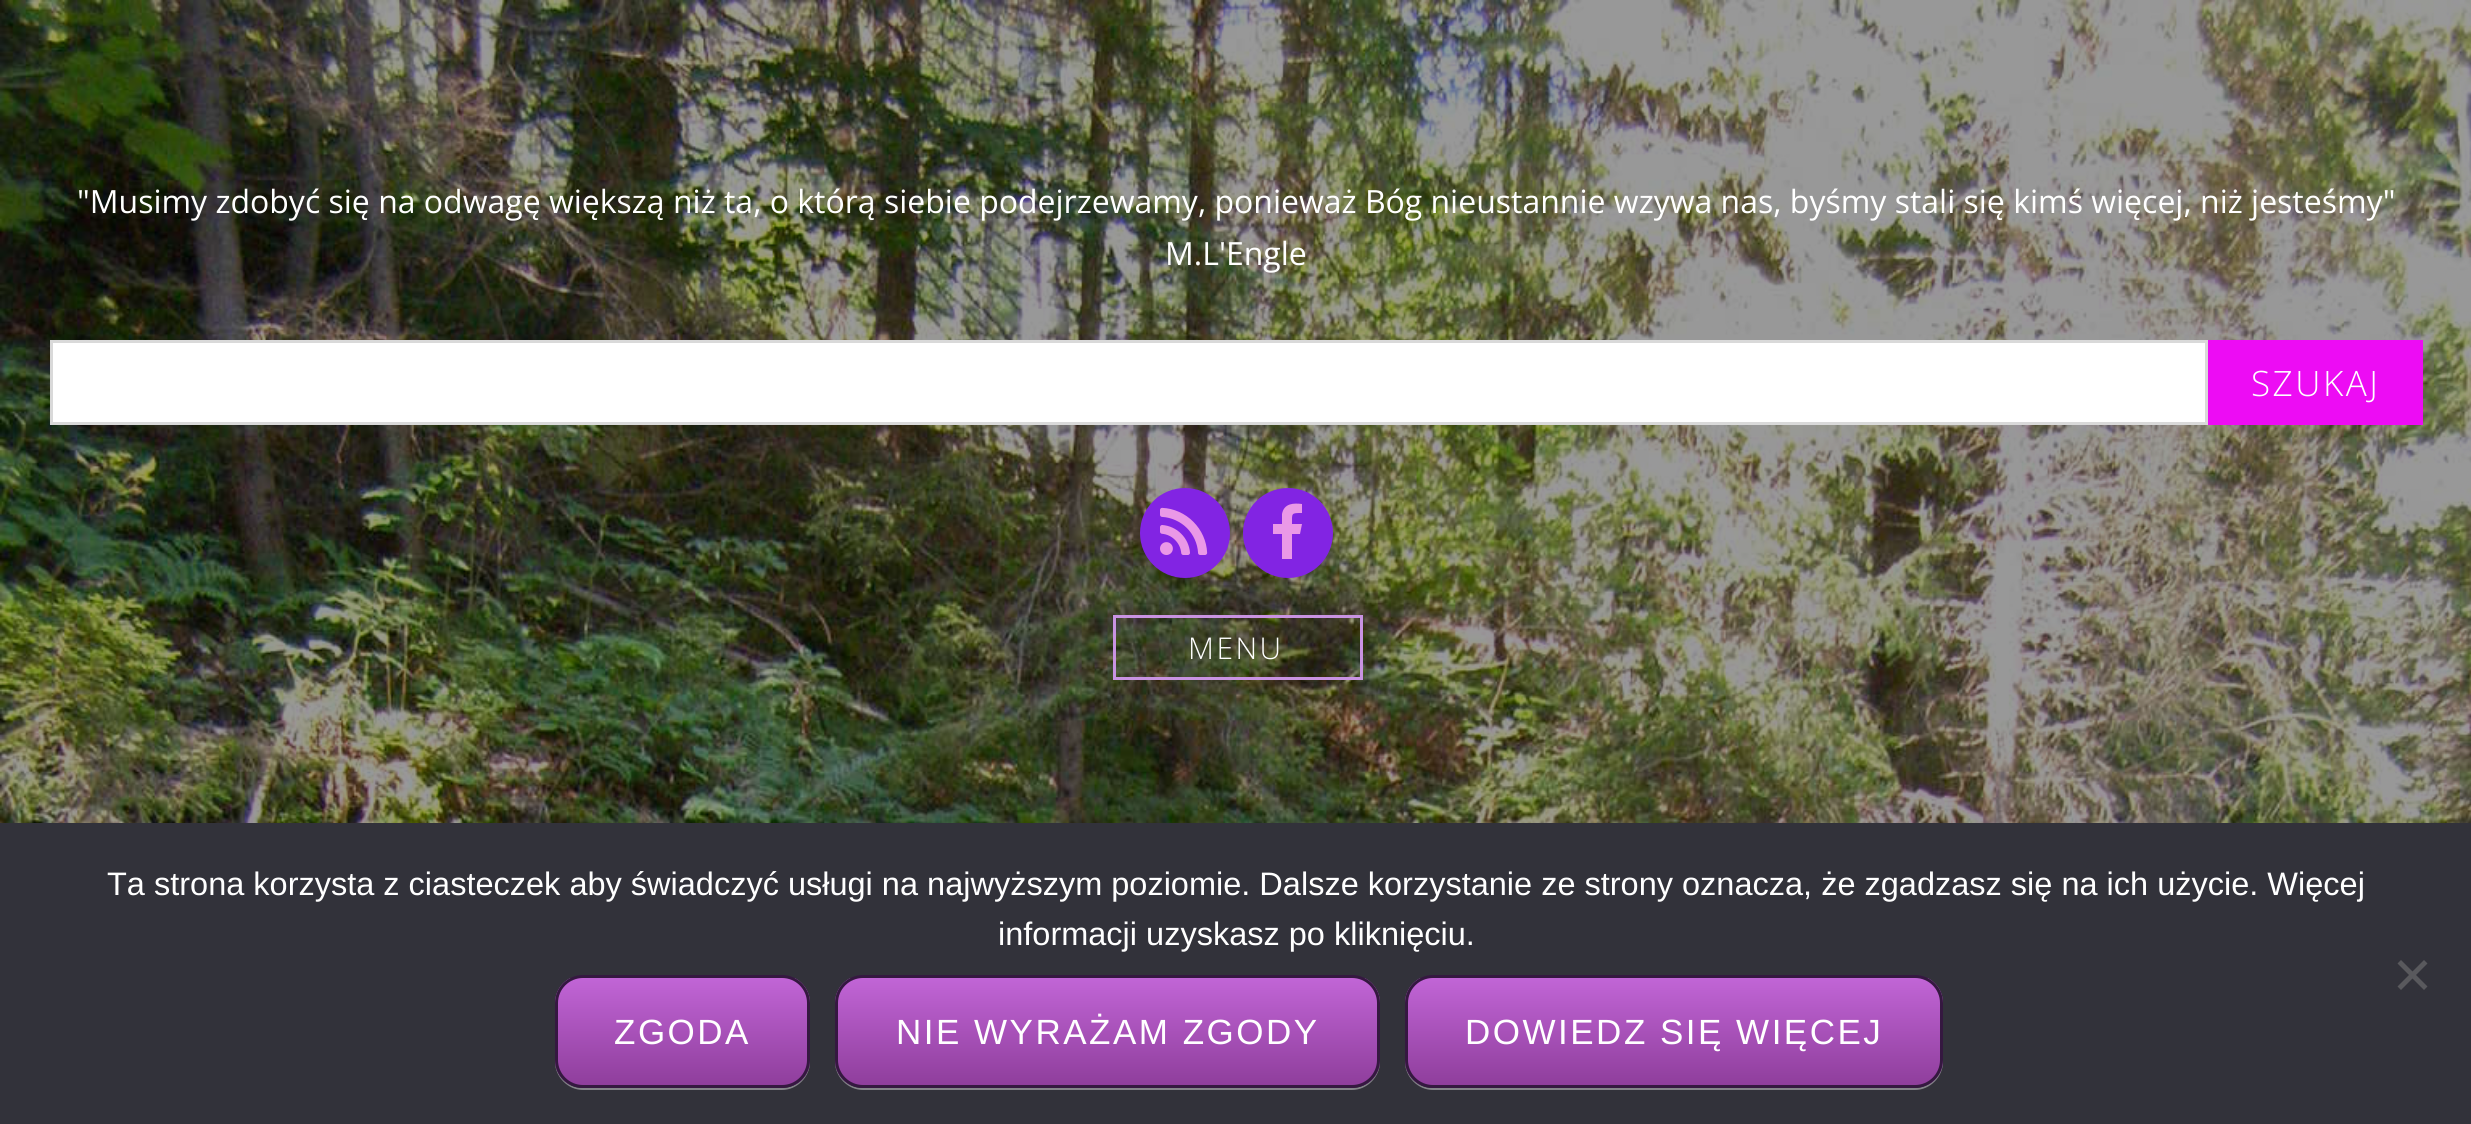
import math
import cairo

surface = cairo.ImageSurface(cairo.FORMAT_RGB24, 2471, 1124)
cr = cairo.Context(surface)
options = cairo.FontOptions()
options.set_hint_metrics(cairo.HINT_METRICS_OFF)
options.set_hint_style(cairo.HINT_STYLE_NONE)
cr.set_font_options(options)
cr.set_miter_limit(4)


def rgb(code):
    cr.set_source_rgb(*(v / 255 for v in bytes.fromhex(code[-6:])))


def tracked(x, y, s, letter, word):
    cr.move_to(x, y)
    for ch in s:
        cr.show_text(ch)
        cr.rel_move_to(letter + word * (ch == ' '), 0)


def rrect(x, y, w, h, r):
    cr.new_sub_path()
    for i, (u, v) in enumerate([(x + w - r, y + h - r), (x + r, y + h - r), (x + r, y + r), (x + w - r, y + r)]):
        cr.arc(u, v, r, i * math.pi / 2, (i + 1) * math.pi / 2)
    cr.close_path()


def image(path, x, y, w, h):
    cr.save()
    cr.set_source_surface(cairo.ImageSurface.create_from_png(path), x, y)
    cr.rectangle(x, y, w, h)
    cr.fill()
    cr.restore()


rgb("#ffffff")
cr.paint()
image("img/1.png", 0, 0, 2471, 823)
rgb("#ffffff")
cr.rectangle(51.5, 341.5, 2155, 82)
cr.fill_preserve()
rgb("#d9d9d9")
cr.set_line_width(3)
cr.stroke()
rgb("#ed0cf4")
cr.rectangle(2208, 340, 215, 85)
cr.fill()
rgb("#8224e3")
cr.arc(1185, 533, 45, 0, 2 * math.pi)
cr.fill()
image("img/2.png", 1160, 507, 48, 48)
cr.arc(1288, 533, 45, 0, 2 * math.pi)
cr.fill()
rgb("#ea98e7")
cr.new_path()
cr.move_to(1302, 504)
cr.line_to(1302, 513)
cr.curve_to(1291, 513, 1292, 513, 1292, 524)
cr.line_to(1302, 524)
cr.line_to(1300, 534)
cr.line_to(1292, 534)
cr.line_to(1292, 559)
cr.line_to(1282, 559)
cr.line_to(1282, 534)
cr.line_to(1273, 534)
cr.line_to(1273, 524)
cr.line_to(1282, 524)
cr.line_to(1282, 514)
cr.curve_to(1284, 503, 1294, 503, 1302, 504)
cr.close_path()
cr.fill()
cr.rectangle(1114.5, 616.5, 247, 62)
rgb("#c993e2")
cr.stroke()
rgb("#32323a")
cr.rectangle(0, 823, 2471, 301)
cr.fill()
rgb("#59595d")
cr.new_path()
cr.move_to(2424, 960)
cr.line_to(2427.5, 963.5)
cr.line_to(2401, 990)
cr.line_to(2397.5, 986.5)
cr.close_path()
cr.fill()
cr.new_path()
cr.move_to(2397.5, 963.5)
cr.line_to(2401, 960)
cr.line_to(2427.5, 986.5)
cr.line_to(2424, 990)
cr.close_path()
cr.fill()
rgb("#848489")
cr.new_path()
cr.move_to(555, 1060)
cr.line_to(555, 1062)
cr.curve_to(555, 1077, 568, 1090, 583, 1090)
cr.line_to(782, 1090)
cr.curve_to(797, 1090, 810, 1077, 810, 1062)
cr.line_to(810, 1060)
cr.curve_to(810, 1075, 798, 1088, 782, 1088)
cr.line_to(582, 1088)
cr.curve_to(567, 1088, 555, 1075, 555, 1060)
cr.close_path()
cr.fill()
cr.save()
rrect(555, 975, 255, 113, 28)
cr.clip()
gradient = cairo.LinearGradient(683, 978, 683, 1085)
gradient.add_color_stop_rgba(0, 0.757, 0.396, 0.839, 1)
gradient.add_color_stop_rgba(1, 0.561, 0.243, 0.612, 1)
cr.set_source(gradient)
cr.rectangle(555, 978, 255, 107)
cr.fill()
cr.restore()
rrect(556.5, 976.5, 252, 110, 26.5)
rgb("#351840")
cr.stroke()
rgb("#848489")
cr.new_path()
cr.move_to(835, 1060)
cr.line_to(835, 1062)
cr.curve_to(835, 1077, 848, 1090, 863, 1090)
cr.line_to(1352, 1090)
cr.curve_to(1367, 1090, 1380, 1077, 1380, 1062)
cr.line_to(1380, 1060)
cr.curve_to(1380, 1075, 1368, 1088, 1352, 1088)
cr.line_to(862, 1088)
cr.curve_to(847, 1088, 835, 1075, 835, 1060)
cr.close_path()
cr.fill()
cr.save()
rrect(835, 975, 545, 113, 28)
cr.clip()
gradient = cairo.LinearGradient(1108, 978, 1108, 1085)
gradient.add_color_stop_rgba(0, 0.757, 0.396, 0.839, 1)
gradient.add_color_stop_rgba(1, 0.561, 0.243, 0.612, 1)
cr.set_source(gradient)
cr.rectangle(835, 978, 545, 107)
cr.fill()
cr.restore()
rrect(836.5, 976.5, 542, 110, 26.5)
rgb("#351840")
cr.stroke()
rgb("#848489")
cr.new_path()
cr.move_to(1405, 1060)
cr.line_to(1405, 1062)
cr.curve_to(1405, 1077, 1418, 1090, 1433, 1090)
cr.line_to(1915, 1090)
cr.curve_to(1930, 1090, 1943, 1077, 1943, 1062)
cr.line_to(1943, 1006)
cr.line_to(1942, 1000)
cr.line_to(1942, 1060)
cr.curve_to(1942, 1075, 1930, 1088, 1915, 1088)
cr.line_to(1432, 1088)
cr.curve_to(1417, 1088, 1405, 1075, 1405, 1060)
cr.close_path()
cr.fill()
cr.save()
rrect(1405, 975, 538, 113, 28)
cr.clip()
gradient = cairo.LinearGradient(1674, 978, 1674, 1085)
gradient.add_color_stop_rgba(0, 0.757, 0.396, 0.839, 1)
gradient.add_color_stop_rgba(1, 0.561, 0.243, 0.612, 1)
cr.set_source(gradient)
cr.rectangle(1405, 978, 538, 107)
cr.fill()
cr.restore()
rrect(1406.5, 976.5, 535, 110, 26.5)
rgb("#351840")
cr.stroke()
cr.select_font_face("Open Sans")
cr.set_font_size(32)
rgb("#ffffff")
cr.move_to(77, 213)
cr.show_text("\"Musimy zdobyć się na odwagę większą niż ta, o którą siebie podejrzewamy, ponieważ Bóg nieustannie wzywa nas, byśmy stali się kimś więcej, niż jesteśmy\"")
cr.move_to(1165, 265)
cr.show_text("M.L'Engle")
cr.select_font_face("Open Sans Light")
cr.set_font_size(35)
tracked(2251, 396, "SZUKAJ", 2.5, 0)
cr.set_font_size(30)
tracked(1188, 659, "MENU", 2.5, 0)
cr.select_font_face("Liberation Sans")
cr.set_font_size(32.5)
cr.move_to(107, 895)
cr.show_text("Ta strona korzysta z ciasteczek aby świadczyć usługi na najwyższym poziomie. Dalsze korzystanie ze strony oznacza, że zgadzasz się na ich użycie. Więcej")
cr.move_to(998, 945)
cr.show_text("informacji uzyskasz po kliknięciu.")
cr.set_font_size(35)
for x, y, s in [
    (614, 1044, "ZGODA"),
    (896, 1044, "NIE WYRAŻAM ZGODY"),
    (1465, 1044, "DOWIEDZ SIĘ WIĘCEJ"),
]:
    tracked(x, y, s, 2.5, 0)
surface.write_to_png("page.png")
